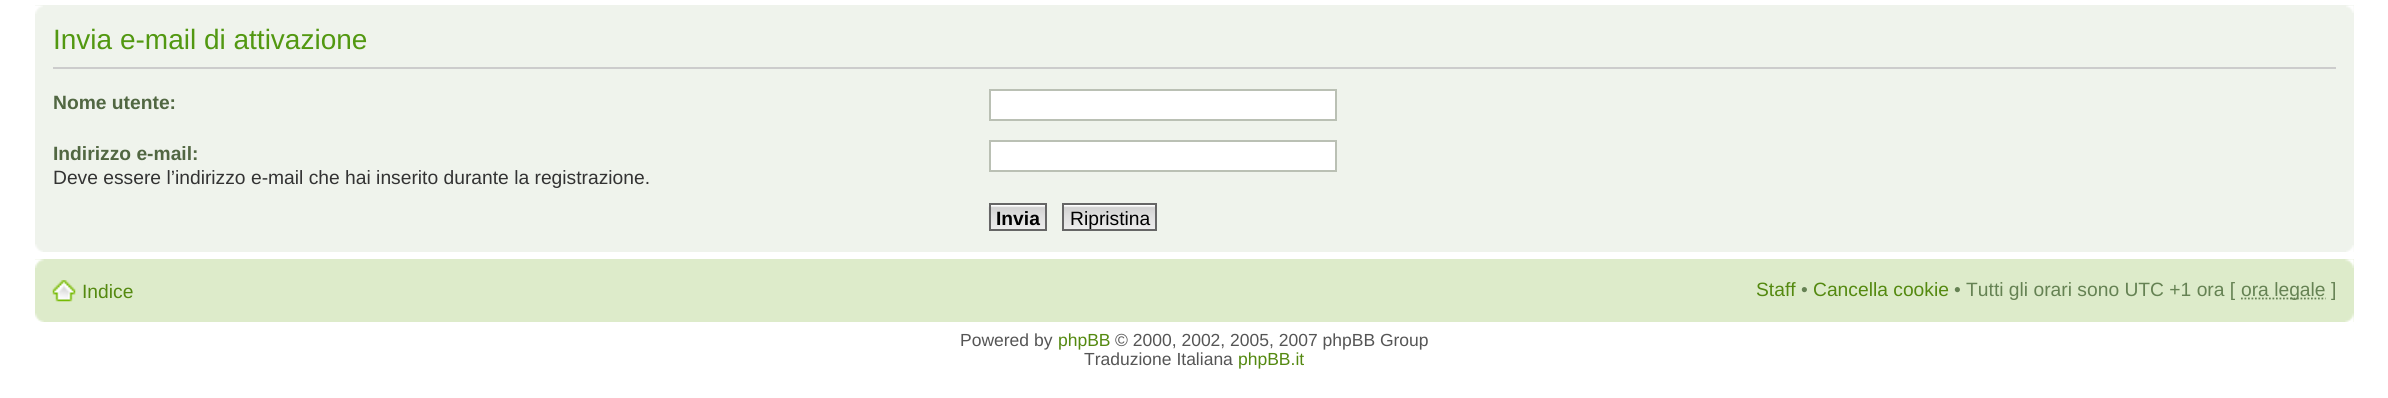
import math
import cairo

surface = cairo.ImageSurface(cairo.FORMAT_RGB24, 2388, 398)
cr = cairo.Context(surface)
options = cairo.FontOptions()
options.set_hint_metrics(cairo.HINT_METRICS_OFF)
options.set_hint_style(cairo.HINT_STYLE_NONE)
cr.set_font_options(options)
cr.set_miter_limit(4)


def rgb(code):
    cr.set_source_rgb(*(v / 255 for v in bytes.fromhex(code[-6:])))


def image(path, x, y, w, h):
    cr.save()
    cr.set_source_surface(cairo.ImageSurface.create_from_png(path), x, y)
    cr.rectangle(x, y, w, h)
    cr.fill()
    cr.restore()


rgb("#ffffff")
cr.paint()
rgb("#eff3ec")
cr.rectangle(35, 5, 2319, 247)
cr.fill()
image("img/1.png", 35, 5, 8, 9)
image("img/2.png", 2346, 5, 8, 8)
rgb("#cccccc")
cr.rectangle(53, 67, 2283, 2)
cr.fill()
rgb("#ffffff")
cr.rectangle(990, 90, 346, 30)
cr.fill_preserve()
rgb("#bac0b4")
cr.stroke()
rgb("#ffffff")
cr.rectangle(990, 141, 346, 30)
cr.fill_preserve()
rgb("#bac0b4")
cr.stroke()
image("img/3.png", 988, 205, 57, 26)
cr.rectangle(990, 204, 56, 26)
rgb("#666666")
cr.stroke()
image("img/4.png", 1064, 205, 91, 24)
cr.rectangle(1063, 204, 93, 26)
cr.stroke()
image("img/5.png", 35, 244, 8, 8)
image("img/6.png", 2346, 245, 8, 7)
rgb("#ddebca")
cr.rectangle(35, 259, 2319, 63)
cr.fill()
image("img/7.png", 35, 259, 9, 9)
image("img/8.png", 2345, 259, 9, 9)
image("img/9.png", 52, 280, 24, 22)
cr.new_path()
cr.move_to(2241, 298.5)
cr.line_to(2325.5, 298.5)
rgb("#658253")
cr.set_line_width(1.8)
cr.set_dash([1.75, 1.75])
cr.stroke()
image("img/10.png", 35, 313, 9, 9)
image("img/11.png", 2345, 313, 9, 9)
cr.select_font_face("Liberation Sans")
cr.set_font_size(28)
rgb("#529811")
cr.move_to(53, 49)
cr.show_text("Invia e-mail di attivazione")
cr.select_font_face("Liberation Sans", cairo.FONT_SLANT_NORMAL, cairo.FONT_WEIGHT_BOLD)
cr.set_font_size(19.25)
rgb("#516742")
cr.move_to(53, 109)
cr.show_text("Nome utente:")
cr.move_to(53, 160)
cr.show_text("Indirizzo e-mail:")
cr.select_font_face("Liberation Sans")
rgb("#333333")
cr.move_to(53, 184)
cr.show_text("Deve essere l’indirizzo e-mail che hai inserito durante la registrazione.")
cr.select_font_face("Liberation Sans", cairo.FONT_SLANT_NORMAL, cairo.FONT_WEIGHT_BOLD)
rgb("#000000")
cr.move_to(996, 225)
cr.show_text("Invia")
cr.select_font_face("Liberation Sans")
cr.move_to(1070, 225)
cr.show_text("Ripristina")
rgb("#548910")
cr.move_to(82, 298)
cr.show_text("Indice")
cr.move_to(1756, 296)
cr.show_text("Staff")
rgb("#658253")
cr.move_to(1801, 296)
cr.show_text("•")
rgb("#548910")
cr.move_to(1813, 296)
cr.show_text("Cancella cookie")
rgb("#658253")
cr.move_to(1954, 296)
cr.show_text("• Tutti gli orari sono UTC +1 ora [")
cr.move_to(2241, 296)
cr.show_text("ora legale ]")
cr.set_font_size(17.5)
rgb("#555555")
cr.move_to(960, 346)
cr.show_text("Powered by")
rgb("#548910")
cr.move_to(1058, 346)
cr.show_text("phpBB")
rgb("#555555")
cr.move_to(1115, 346)
cr.show_text("© 2000, 2002, 2005, 2007 phpBB Group")
cr.move_to(1084, 365)
cr.show_text("Traduzione Italiana")
rgb("#548910")
cr.move_to(1238, 365)
cr.show_text("phpBB.it")
surface.write_to_png("page.png")
